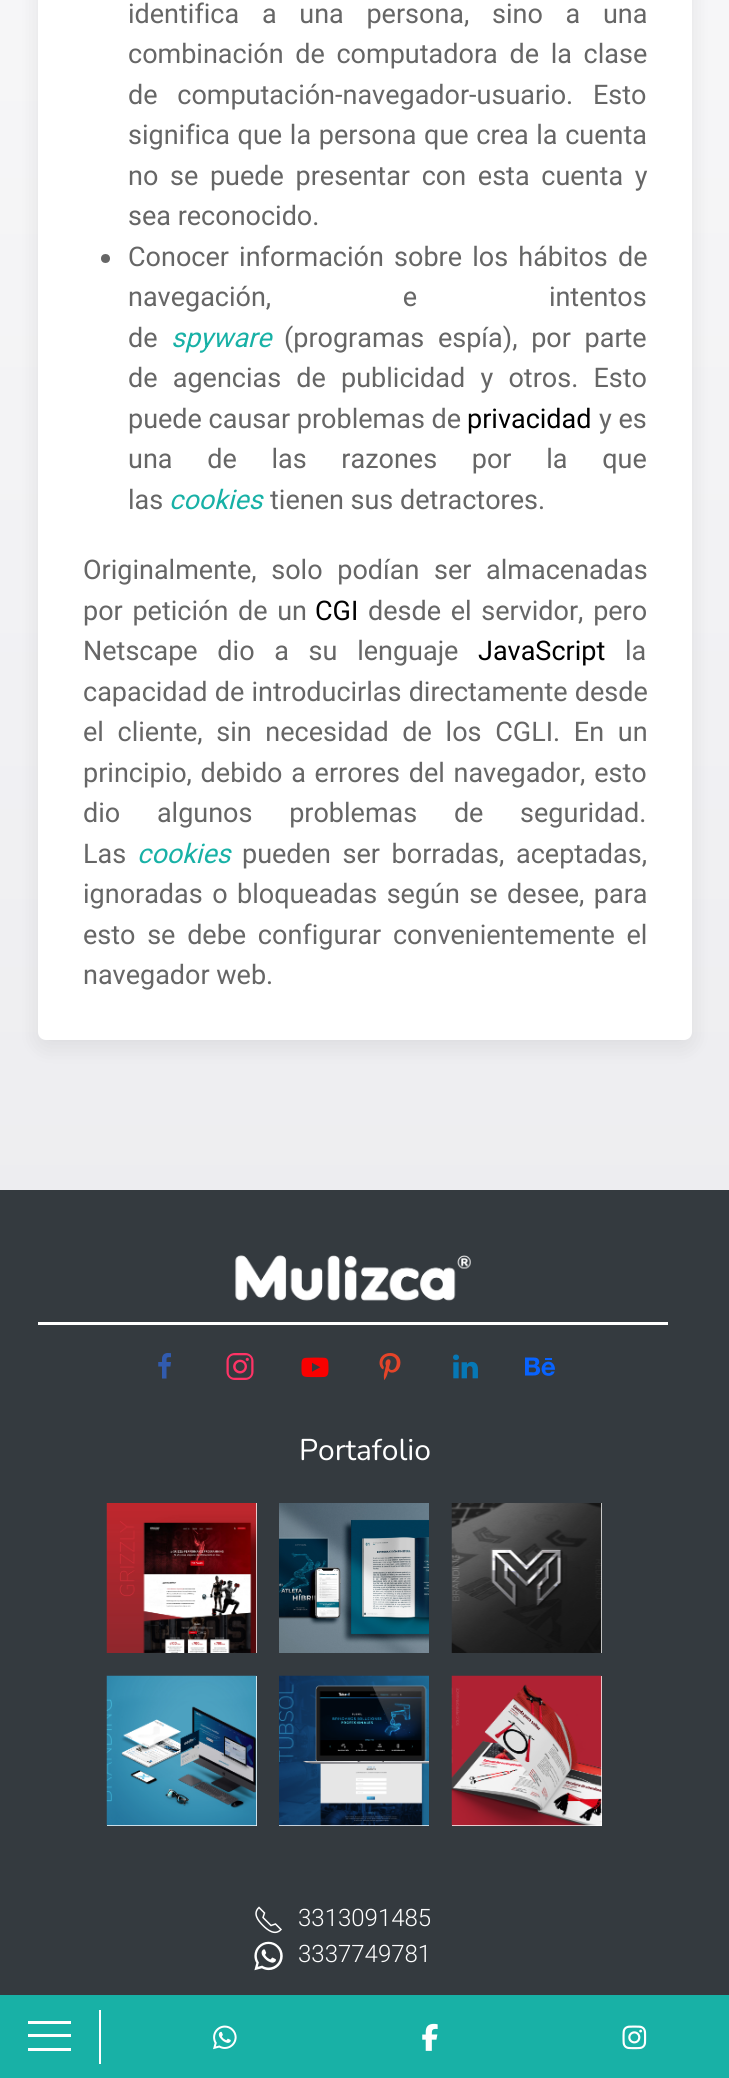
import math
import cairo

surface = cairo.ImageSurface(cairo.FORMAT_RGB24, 729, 2078)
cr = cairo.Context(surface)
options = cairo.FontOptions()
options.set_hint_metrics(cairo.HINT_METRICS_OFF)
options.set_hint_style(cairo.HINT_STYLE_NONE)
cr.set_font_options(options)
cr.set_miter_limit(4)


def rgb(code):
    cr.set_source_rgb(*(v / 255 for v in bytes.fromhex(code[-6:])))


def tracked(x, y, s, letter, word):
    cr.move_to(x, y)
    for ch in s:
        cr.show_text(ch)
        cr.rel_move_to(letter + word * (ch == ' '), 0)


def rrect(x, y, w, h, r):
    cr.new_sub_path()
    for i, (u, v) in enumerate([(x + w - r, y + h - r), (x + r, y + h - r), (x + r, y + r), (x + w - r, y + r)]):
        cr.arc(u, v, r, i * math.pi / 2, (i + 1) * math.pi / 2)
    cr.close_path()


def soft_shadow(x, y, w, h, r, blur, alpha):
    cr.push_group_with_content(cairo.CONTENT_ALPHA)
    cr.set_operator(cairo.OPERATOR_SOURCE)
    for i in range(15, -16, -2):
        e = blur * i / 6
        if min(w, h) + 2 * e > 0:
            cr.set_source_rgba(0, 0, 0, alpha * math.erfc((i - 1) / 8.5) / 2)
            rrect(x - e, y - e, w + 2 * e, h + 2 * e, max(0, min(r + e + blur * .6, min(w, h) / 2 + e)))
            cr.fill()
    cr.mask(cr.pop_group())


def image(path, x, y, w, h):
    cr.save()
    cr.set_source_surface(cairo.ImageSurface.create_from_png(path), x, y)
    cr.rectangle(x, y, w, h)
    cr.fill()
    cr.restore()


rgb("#ffffff")
cr.paint()
gradient = cairo.LinearGradient(364, -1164, 365, 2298)
gradient.add_color_stop_rgba(0, 1, 1, 1, 1)
gradient.add_color_stop_rgba(1, 0.898, 0.898, 0.914, 1)
cr.set_source(gradient)
cr.rectangle(0, 0, 729, 1190)
cr.fill()
rgb("#000000")
soft_shadow(38, -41, 654, 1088, 8, 11, 0.08)
rgb("#ffffff")
rrect(38, -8, 654, 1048, 8)
cr.fill()
rgb("#666666")
cr.arc(105.5, 258.5, 4.5, 0, 2 * math.pi)
cr.fill()
rgb("#343a3f")
cr.rectangle(0, 1190, 729, 805)
cr.fill()
image("img/1.png", 235, 1255, 236, 46)
rgb("#ffffff")
cr.rectangle(38, 1322, 630, 3)
cr.fill()
image("img/2.png", 158, 1353, 13, 26)
image("img/3.png", 226, 1353, 28, 27)
image("img/4.png", 301, 1357, 28, 21)
image("img/5.png", 379, 1353, 22, 27)
image("img/6.png", 453, 1354, 25, 25)
image("img/7.png", 525, 1357, 30, 19)
cr.rectangle(256, 1503, 1, 150)
cr.fill()
image("img/8.png", 106, 1503, 151, 150)
image("img/9.png", 279, 1503, 150, 150)
cr.rectangle(601, 1503, 1, 150)
cr.fill()
image("img/10.png", 451, 1503, 151, 150)
cr.rectangle(107, 1676, 150, 150)
cr.fill()
image("img/11.png", 106, 1675, 151, 151)
cr.rectangle(279, 1825, 150, 1)
cr.fill()
image("img/12.png", 279, 1675, 150, 151)
cr.rectangle(452, 1676, 150, 150)
cr.fill()
image("img/13.png", 451, 1675, 151, 151)
cr.new_path()
cr.move_to(263, 1925.5)
cr.curve_to(267.5, 1930, 275, 1936, 281, 1929.5)
cr.line_to(275.5, 1924)
cr.line_to(271, 1925.5)
cr.line_to(263, 1917.5)
cr.line_to(264.5, 1913)
cr.line_to(259, 1907.5)
cr.curve_to(252.5, 1913.5, 258, 1920.5, 263, 1925.5)
cr.set_line_width(1.5)
cr.stroke()
image("img/14.png", 254, 1941, 29, 30)
for x, y, w, h, color in [
    (0, 1995, 729, 83, "#18b1a6"),
    (99, 2010, 2, 54, "#ffffff"),
    (28, 2021, 43, 3, "#ffffff"),
    (28, 2034, 43, 3, "#ffffff"),
    (28, 2048, 43, 3, "#ffffff"),
]:
    rgb(color)
    cr.rectangle(x, y, w, h)
    cr.fill()
image("img/15.png", 213, 2025, 24, 25)
image("img/16.png", 422, 2023, 16, 28)
image("img/17.png", 622, 2025, 25, 25)
cr.select_font_face("Roboto")
cr.set_font_size(27)
rgb("#666666")
tracked(128, 23, "identifica a una persona, sino a una", 0, 16)
tracked(128, 63, "combinación de computadora de la clase", 0, 5)
tracked(128, 104, "de computación-navegador-usuario. Esto", 0, 13)
tracked(128, 144, "significa que la persona que crea la cuenta", 0, 1)
tracked(128, 185, "no se puede presentar con esta cuenta y", 0, 5)
cr.move_to(128, 225)
cr.show_text("sea reconocido.")
tracked(128, 266, "Conocer información sobre los hábitos de", 0, 3.5)
tracked(128, 306, "navegación, e intentos", 0, 125)
cr.move_to(128, 347)
cr.show_text("de")
cr.select_font_face("Roboto", cairo.FONT_SLANT_ITALIC)
rgb("#18b1a6")
cr.move_to(171, 347)
cr.show_text("spyware")
cr.select_font_face("Roboto")
rgb("#666666")
tracked(284, 347, "(programas espía), por parte", 0, 7)
tracked(128, 387, "de agencias de publicidad y otros. Esto", 0, 8.5)
cr.move_to(128, 428)
cr.show_text("puede causar problemas de")
rgb("#000000")
cr.move_to(467, 428)
cr.show_text("privacidad")
rgb("#666666")
cr.move_to(599, 428)
cr.show_text("y es")
tracked(128, 468, "una de las razones por la que", 0, 28)
cr.move_to(128, 509)
cr.show_text("las")
cr.select_font_face("Roboto", cairo.FONT_SLANT_ITALIC)
rgb("#18b1a6")
cr.move_to(169, 509)
cr.show_text("cookies")
cr.select_font_face("Roboto")
rgb("#666666")
cr.move_to(270, 509)
cr.show_text("tienen sus detractores.")
tracked(83, 579, "Originalmente, solo podían ser almacenadas", 0, 8)
tracked(83, 620, "por petición de un", 0, 3)
rgb("#000000")
cr.move_to(315, 620)
cr.show_text("CGI")
rgb("#666666")
tracked(368, 620, "desde el servidor, pero", 0, 3)
tracked(83, 660, "Netscape dio a su lenguaje", 0, 13)
rgb("#000000")
cr.move_to(478, 660)
cr.show_text("JavaScript")
rgb("#666666")
cr.move_to(625, 660)
cr.show_text("la")
tracked(83, 701, "capacidad de introducirlas directamente desde", 0, 0.5)
tracked(83, 741, "el cliente, sin necesidad de los CGLI. En un", 0, 7)
tracked(83, 782, "principio, debido a errores del navegador, esto", 0, 2)
tracked(83, 822, "dio algunos problemas de seguridad.", 0, 30)
cr.move_to(83, 863)
cr.show_text("Las")
cr.select_font_face("Roboto", cairo.FONT_SLANT_ITALIC)
rgb("#18b1a6")
cr.move_to(137, 863)
cr.show_text("cookies")
cr.select_font_face("Roboto")
rgb("#666666")
tracked(242, 863, "pueden ser borradas, aceptadas,", 0, 5)
tracked(83, 903, "ignoradas o bloqueadas según se desee, para", 0, 2.75)
tracked(83, 944, "esto se debe configurar convenientemente el", 0, 5)
cr.move_to(83, 984)
cr.show_text("navegador web.")
cr.select_font_face("Nunito")
cr.set_font_size(30)
rgb("#ffffff")
cr.move_to(299, 1460)
cr.show_text("Portafolio")
cr.select_font_face("Roboto Light")
cr.set_font_size(24)
cr.move_to(298, 1926)
cr.show_text("3313091485")
cr.move_to(298, 1962)
cr.show_text("3337749781")
surface.write_to_png("page.png")
